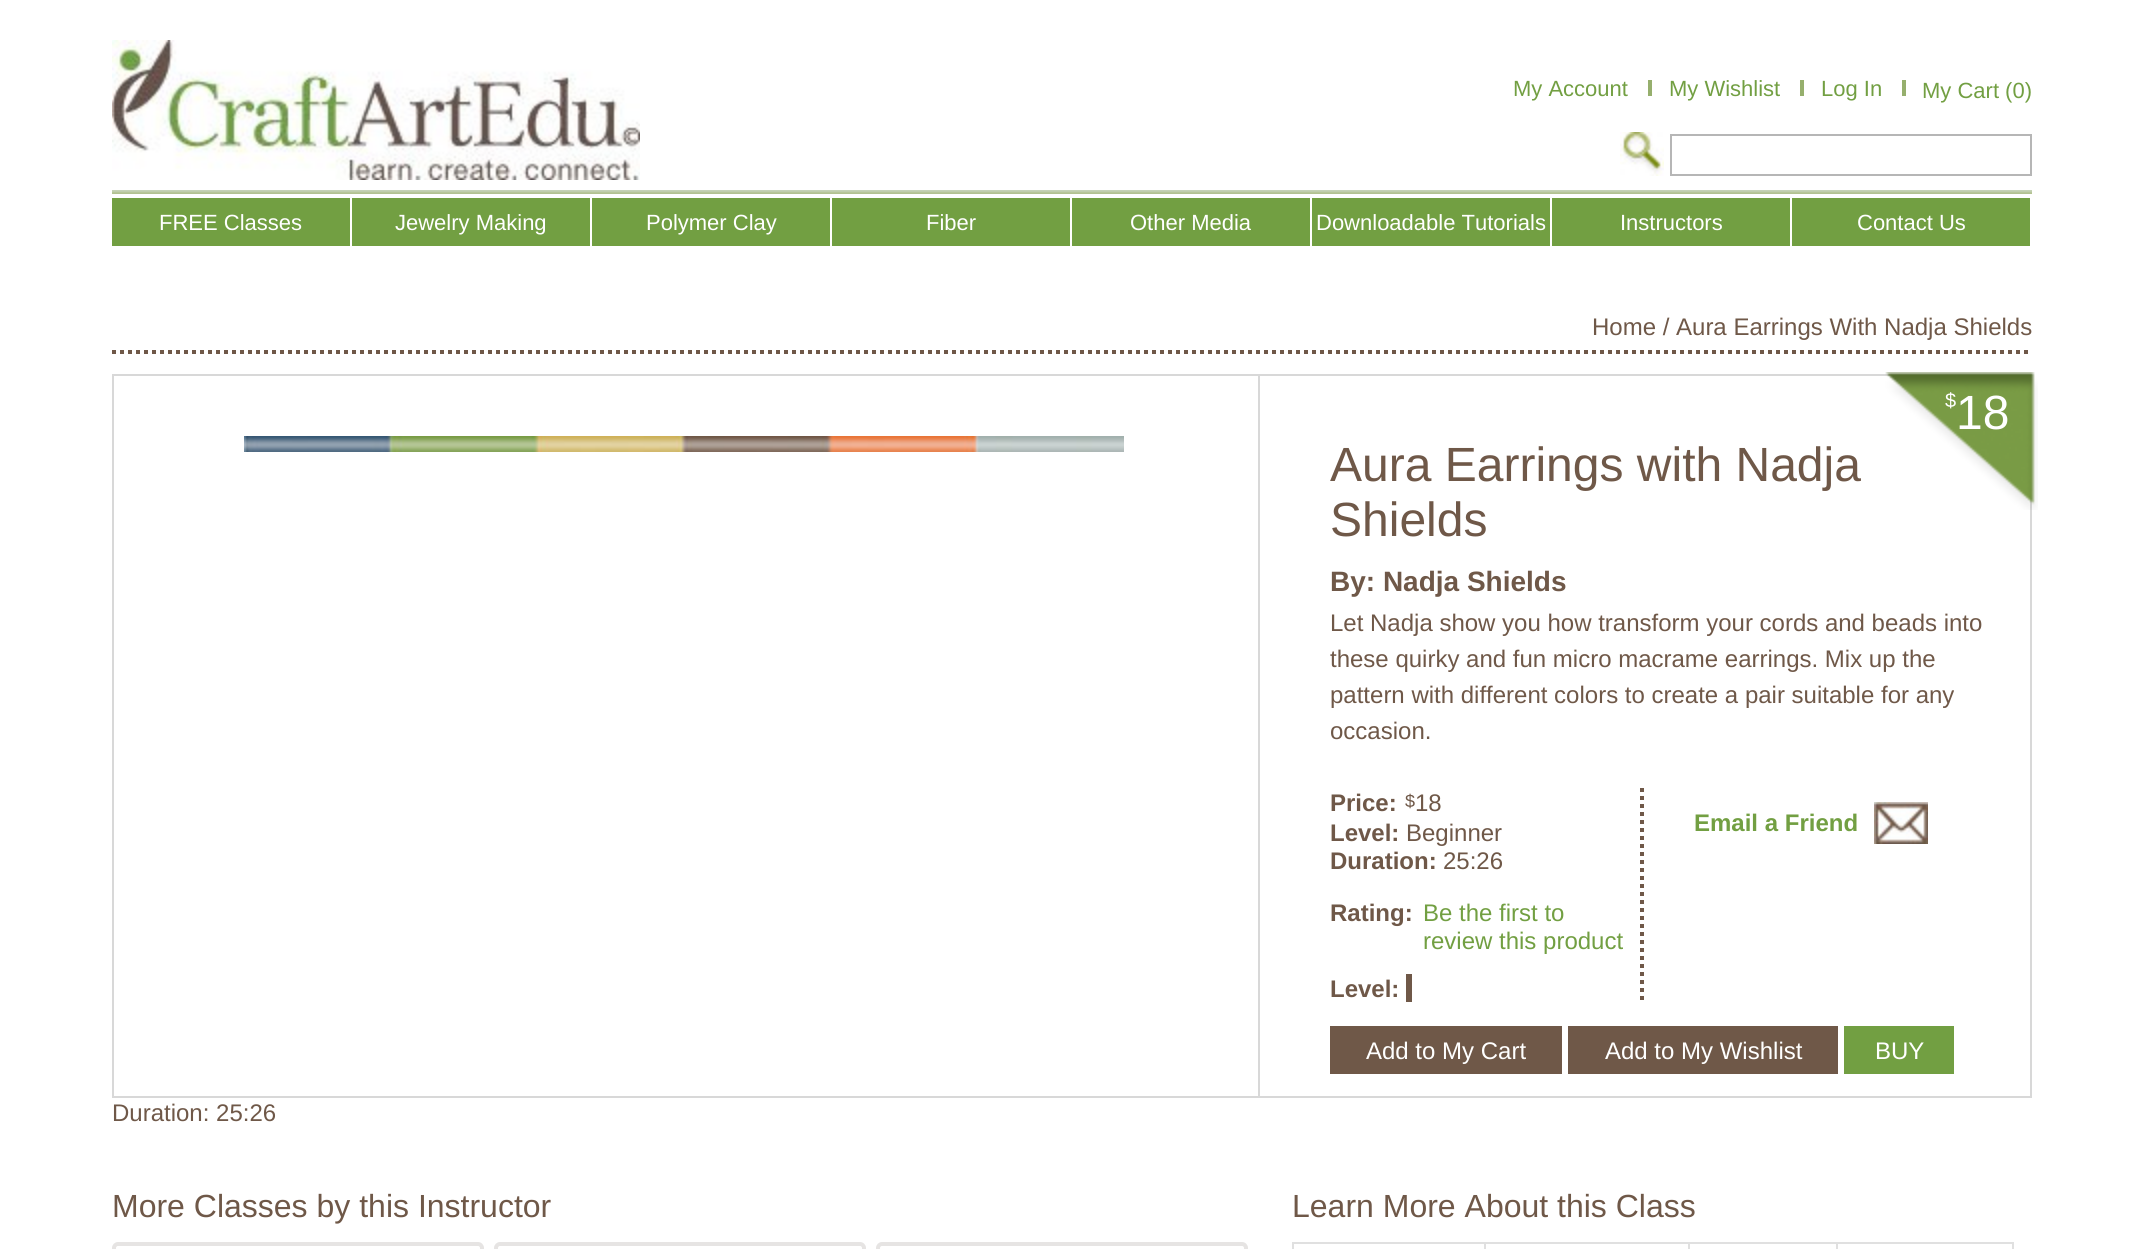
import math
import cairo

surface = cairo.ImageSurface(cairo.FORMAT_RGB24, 2143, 1249)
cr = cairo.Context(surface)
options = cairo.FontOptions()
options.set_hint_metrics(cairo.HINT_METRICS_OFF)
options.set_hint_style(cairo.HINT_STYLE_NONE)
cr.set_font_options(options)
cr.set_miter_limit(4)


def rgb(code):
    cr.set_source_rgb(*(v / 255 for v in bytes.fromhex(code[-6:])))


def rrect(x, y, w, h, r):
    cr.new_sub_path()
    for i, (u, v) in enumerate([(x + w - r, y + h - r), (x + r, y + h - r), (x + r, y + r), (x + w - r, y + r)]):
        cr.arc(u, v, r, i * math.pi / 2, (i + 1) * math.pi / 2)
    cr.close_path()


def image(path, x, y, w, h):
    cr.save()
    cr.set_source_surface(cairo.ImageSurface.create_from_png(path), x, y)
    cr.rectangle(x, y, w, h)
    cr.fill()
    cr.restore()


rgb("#ffffff")
cr.paint()
image("img/1.png", 112, 40, 528, 140)
for x, y, w, h, color in [
    (1648, 80, 4, 16, "#96af6d"),
    (1800, 80, 4, 16, "#96af6d"),
    (1902, 80, 4, 16, "#96af6d"),
]:
    rgb(color)
    cr.rectangle(x, y, w, h)
    cr.fill()
image("img/2.png", 1620, 132, 44, 44)
cr.rectangle(1671, 135, 360, 40)
rgb("#b6b6b6")
cr.stroke()
image("img/3.png", 112, 190, 1920, 4)
for x, y, w, h, color in [
    (112, 198, 238, 48, "#729f42"),
    (352, 198, 238, 48, "#729f42"),
    (592, 198, 238, 48, "#729f42"),
    (832, 198, 238, 48, "#729f42"),
    (1072, 198, 238, 48, "#729f42"),
    (1312, 198, 238, 48, "#729f42"),
    (1552, 198, 238, 48, "#729f42"),
    (1792, 198, 238, 48, "#729f42"),
]:
    rgb(color)
    cr.rectangle(x, y, w, h)
    cr.fill()
cr.new_path()
cr.move_to(112, 352)
cr.line_to(2032, 352)
rgb("#6f5848")
cr.set_line_width(4)
cr.set_dash([4, 4])
cr.stroke()
for x, y, w, h, color in [
    (112, 374, 1146, 2, "#d8d8d8"),
    (112, 1096, 1146, 2, "#d8d8d8"),
    (112, 374, 2, 724, "#d8d8d8"),
]:
    rgb(color)
    cr.rectangle(x, y, w, h)
    cr.fill()
image("img/4.png", 244, 436, 880, 16)
cr.rectangle(1259, 375, 772, 722)
cr.set_line_width(2)
cr.set_dash([])
cr.stroke()
image("img/5.png", 1885, 372, 153, 138)
cr.new_path()
cr.move_to(1642, 788)
cr.line_to(1642, 1002)
rgb("#6f5848")
cr.set_line_width(4)
cr.set_dash([4, 4])
cr.stroke()
cr.rectangle(1406, 974, 6, 28)
cr.fill()
image("img/6.png", 1874, 802, 54, 42)
for x, y, w, h, color in [
    (1330, 1026, 232, 48, "#6f5848"),
    (1568, 1026, 270, 48, "#6f5848"),
    (1844, 1026, 110, 48, "#729f42"),
]:
    rgb(color)
    cr.rectangle(x, y, w, h)
    cr.fill()
rrect(114, 1244, 368, 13, 4)
rgb("#e6e4e3")
cr.set_dash([])
cr.stroke()
rrect(496, 1244, 368, 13, 4)
cr.stroke()
rrect(878, 1244, 368, 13, 4)
cr.stroke()
for x, y, w, h, color in [
    (1292, 1242, 544, 2, "#e0e0e0"),
    (1688, 1242, 2, 7, "#e0e0e0"),
    (1292, 1242, 2, 7, "#e0e0e0"),
    (1484, 1242, 2, 7, "#e0e0e0"),
]:
    rgb(color)
    cr.rectangle(x, y, w, h)
    cr.fill()
cr.rectangle(1837, 1243, 176, 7)
cr.set_line_width(2)
cr.stroke()
cr.select_font_face("Liberation Sans")
cr.set_font_size(22)
rgb("#729f42")
for x, y, s in [
    (1513, 96, "My Account"),
    (1669, 96, "My Wishlist"),
    (1821, 96, "Log In"),
    (1922, 98, "My Cart (0)"),
]:
    cr.move_to(x, y)
    cr.show_text(s)
rgb("#ffffff")
for x, y, s in [
    (159, 230, "FREE Classes"),
    (395, 230, "Jewelry Making"),
    (646, 230, "Polymer Clay"),
    (926, 230, "Fiber"),
    (1130, 230, "Other Media"),
    (1316, 230, "Downloadable Tutorials"),
    (1620, 230, "Instructors"),
    (1857, 230, "Contact Us"),
]:
    cr.move_to(x, y)
    cr.show_text(s)
cr.set_font_size(24)
rgb("#6f5848")
cr.move_to(1592, 335)
cr.show_text("Home / Aura Earrings With Nadja Shields")
cr.set_font_size(20)
rgb("#ffffff")
cr.move_to(1945, 407)
cr.show_text("$")
cr.set_font_size(48)
cr.move_to(1956, 429)
cr.show_text("18")
rgb("#6f5848")
cr.move_to(1330, 481)
cr.show_text("Aura Earrings with Nadja")
cr.move_to(1330, 536)
cr.show_text("Shields")
cr.select_font_face("Liberation Sans", cairo.FONT_SLANT_NORMAL, cairo.FONT_WEIGHT_BOLD)
cr.set_font_size(28)
cr.move_to(1330, 591)
cr.show_text("By: Nadja Shields")
cr.select_font_face("Liberation Sans")
cr.set_font_size(24)
for x, y, s in [
    (1330, 631, "Let Nadja show you how transform your cords and beads into"),
    (1330, 667, "these quirky and fun micro macrame earrings. Mix up the"),
    (1330, 703, "pattern with different colors to create a pair suitable for any"),
    (1330, 739, "occasion."),
]:
    cr.move_to(x, y)
    cr.show_text(s)
cr.select_font_face("Liberation Sans", cairo.FONT_SLANT_NORMAL, cairo.FONT_WEIGHT_BOLD)
cr.move_to(1330, 811)
cr.show_text("Price:")
cr.select_font_face("Liberation Sans")
cr.set_font_size(18)
cr.move_to(1405, 807)
cr.show_text("$")
cr.set_font_size(24)
cr.move_to(1415, 811)
cr.show_text("18")
cr.select_font_face("Liberation Sans", cairo.FONT_SLANT_NORMAL, cairo.FONT_WEIGHT_BOLD)
cr.move_to(1330, 841)
cr.show_text("Level:")
cr.select_font_face("Liberation Sans")
cr.move_to(1406, 841)
cr.show_text("Beginner")
cr.select_font_face("Liberation Sans", cairo.FONT_SLANT_NORMAL, cairo.FONT_WEIGHT_BOLD)
cr.move_to(1330, 869)
cr.show_text("Duration:")
cr.select_font_face("Liberation Sans")
cr.move_to(1443, 869)
cr.show_text("25:26")
cr.select_font_face("Liberation Sans", cairo.FONT_SLANT_NORMAL, cairo.FONT_WEIGHT_BOLD)
cr.move_to(1330, 921)
cr.show_text("Rating:")
cr.select_font_face("Liberation Sans")
rgb("#729f42")
cr.move_to(1423, 921)
cr.show_text("Be the first to")
cr.move_to(1423, 949)
cr.show_text("review this product")
cr.select_font_face("Liberation Sans", cairo.FONT_SLANT_NORMAL, cairo.FONT_WEIGHT_BOLD)
rgb("#6f5848")
cr.move_to(1330, 997)
cr.show_text("Level:")
rgb("#729f42")
cr.move_to(1694, 831)
cr.show_text("Email a Friend")
cr.select_font_face("Liberation Sans")
rgb("#ffffff")
for x, y, s in [
    (1366, 1059, "Add to My Cart"),
    (1605, 1059, "Add to My Wishlist"),
    (1875, 1059, "BUY"),
]:
    cr.move_to(x, y)
    cr.show_text(s)
rgb("#6f5848")
cr.move_to(112, 1121)
cr.show_text("Duration: 25:26")
cr.set_font_size(32)
cr.move_to(112, 1217)
cr.show_text("More Classes by this Instructor")
cr.move_to(1292, 1217)
cr.show_text("Learn More About this Class")
surface.write_to_png("page.png")
